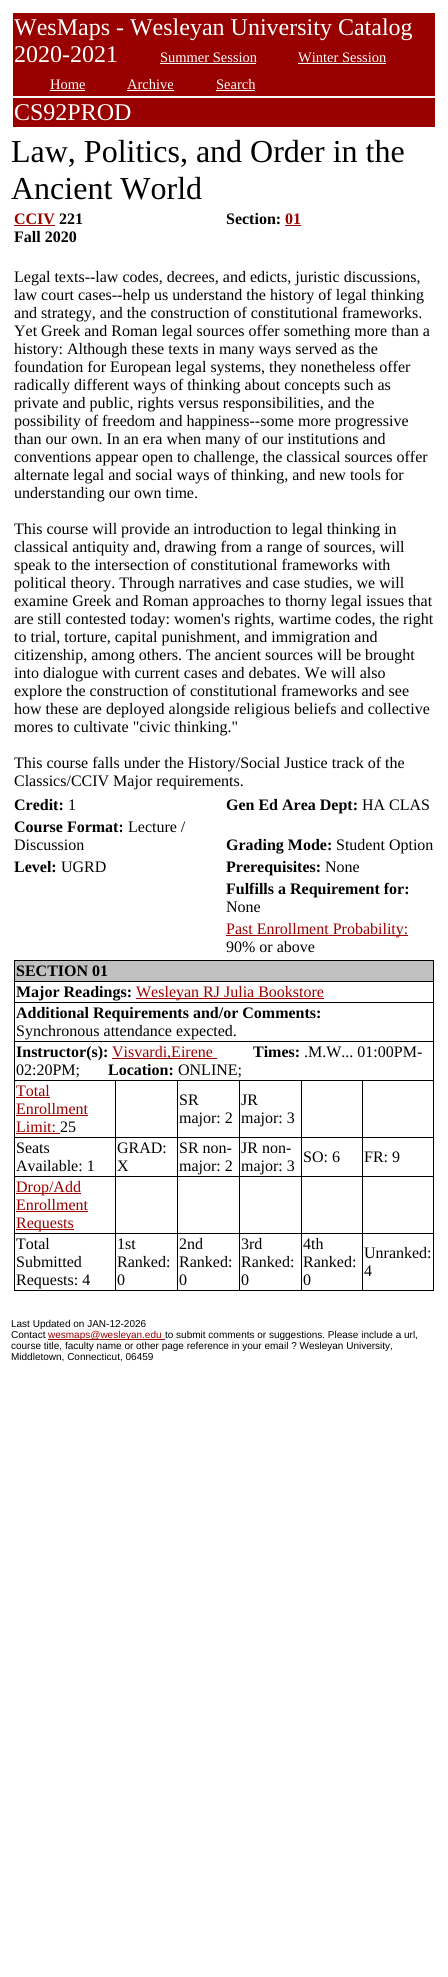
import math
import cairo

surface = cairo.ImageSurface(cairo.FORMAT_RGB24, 448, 1977)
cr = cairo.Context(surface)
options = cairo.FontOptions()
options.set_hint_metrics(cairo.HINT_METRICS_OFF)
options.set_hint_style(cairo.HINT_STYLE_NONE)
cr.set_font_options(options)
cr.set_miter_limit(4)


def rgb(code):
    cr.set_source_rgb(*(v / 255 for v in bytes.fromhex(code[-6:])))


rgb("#ffffff")
cr.paint()
for x, y, w, h, color in [
    (13, 13, 422, 83, "#990000"),
    (160, 63, 96, 1, "#ffffff"),
    (298, 63, 88, 1, "#ffffff"),
    (50, 90, 35, 1, "#ffffff"),
    (127, 90, 47, 1, "#ffffff"),
    (216, 90, 39, 1, "#ffffff"),
    (13, 98, 422, 29, "#990000"),
    (14, 225, 41, 1, "#990000"),
    (285, 225, 16, 1, "#990000"),
    (226, 935, 182, 1, "#990000"),
    (14, 960, 420, 1, "#000000"),
    (433, 960, 1, 331, "#000000"),
    (14, 1290, 420, 1, "#000000"),
    (14, 960, 1, 331, "#000000"),
    (15, 961, 418, 20, "#c0c0c0"),
    (14, 981, 420, 1, "#000000"),
    (136, 998, 188, 1, "#990000"),
    (14, 1002, 420, 1, "#000000"),
    (14, 1041, 420, 1, "#000000"),
    (112, 1058, 105, 1, "#990000"),
    (362, 1080, 72, 1, "#000000"),
    (362, 1137, 72, 1, "#000000"),
    (362, 1176, 72, 1, "#000000"),
    (362, 1233, 72, 1, "#000000"),
    (362, 1233, 1, 58, "#000000"),
    (301, 1233, 62, 1, "#000000"),
    (362, 1176, 1, 58, "#000000"),
    (301, 1176, 62, 1, "#000000"),
    (362, 1137, 1, 40, "#000000"),
    (301, 1137, 62, 1, "#000000"),
    (362, 1080, 1, 58, "#000000"),
    (301, 1080, 62, 1, "#000000"),
    (301, 1233, 1, 58, "#000000"),
    (239, 1233, 63, 1, "#000000"),
    (301, 1176, 1, 58, "#000000"),
    (239, 1176, 63, 1, "#000000"),
    (301, 1137, 1, 40, "#000000"),
    (239, 1137, 63, 1, "#000000"),
    (301, 1080, 1, 58, "#000000"),
    (239, 1080, 63, 1, "#000000"),
    (239, 1233, 1, 58, "#000000"),
    (177, 1233, 63, 1, "#000000"),
    (239, 1176, 1, 58, "#000000"),
    (177, 1176, 63, 1, "#000000"),
    (239, 1137, 1, 40, "#000000"),
    (177, 1137, 63, 1, "#000000"),
    (239, 1080, 1, 58, "#000000"),
    (177, 1080, 63, 1, "#000000"),
    (177, 1233, 1, 58, "#000000"),
    (115, 1233, 63, 1, "#000000"),
    (177, 1176, 1, 58, "#000000"),
    (115, 1176, 63, 1, "#000000"),
    (177, 1137, 1, 40, "#000000"),
    (115, 1137, 63, 1, "#000000"),
    (177, 1080, 1, 58, "#000000"),
    (115, 1080, 63, 1, "#000000"),
    (115, 1233, 1, 58, "#000000"),
    (14, 1233, 102, 1, "#000000"),
    (115, 1176, 1, 58, "#000000"),
    (14, 1176, 102, 1, "#000000"),
    (115, 1137, 1, 40, "#000000"),
    (14, 1137, 102, 1, "#000000"),
    (115, 1080, 1, 58, "#000000"),
    (14, 1080, 102, 1, "#000000"),
    (16, 1097, 34, 1, "#990000"),
    (16, 1115, 72, 1, "#990000"),
    (16, 1133, 44, 1, "#990000"),
    (16, 1193, 65, 1, "#990000"),
    (16, 1211, 72, 1, "#990000"),
    (16, 1229, 58, 1, "#990000"),
    (48, 1339, 117, 1, "#990000"),
]:
    rgb(color)
    cr.rectangle(x, y, w, h)
    cr.fill()
cr.select_font_face("Liberation Serif")
cr.set_font_size(24)
rgb("#ffffff")
cr.move_to(14, 35)
cr.show_text("WesMaps - Wesleyan University Catalog")
cr.move_to(14, 62)
cr.show_text("2020-2021")
cr.set_font_size(14.5)
for x, y, s in [
    (160, 62, "Summer Session"),
    (298, 62, "Winter Session"),
    (50, 89, "Home"),
    (127, 89, "Archive"),
    (216, 89, "Search"),
]:
    cr.move_to(x, y)
    cr.show_text(s)
cr.set_font_size(24)
cr.move_to(14, 120)
cr.show_text("CS92PROD")
cr.set_font_size(32)
rgb("#000000")
cr.move_to(11, 162)
cr.show_text("Law, Politics, and Order in the")
cr.move_to(11, 199)
cr.show_text("Ancient World")
cr.select_font_face("Liberation Serif", cairo.FONT_SLANT_NORMAL, cairo.FONT_WEIGHT_BOLD)
cr.set_font_size(16)
rgb("#990000")
cr.move_to(14, 224)
cr.show_text("CCIV")
rgb("#000000")
for x, y, s in [
    (59, 224, "221"),
    (14, 242, "Fall 2020"),
    (226, 224, "Section:"),
]:
    cr.move_to(x, y)
    cr.show_text(s)
rgb("#990000")
cr.move_to(285, 224)
cr.show_text("01")
cr.select_font_face("Liberation Serif")
rgb("#000000")
for x, y, s in [
    (14, 282, "Legal texts--law codes, decrees, and edicts, juristic discussions,"),
    (14, 300, "law court cases--help us understand the history of legal thinking"),
    (14, 318, "and strategy, and the construction of constitutional frameworks."),
    (14, 336, "Yet Greek and Roman legal sources offer something more than a"),
    (14, 354, "history: Although these texts in many ways served as the"),
    (14, 372, "foundation for European legal systems, they nonetheless offer"),
    (14, 390, "radically different ways of thinking about concepts such as"),
    (14, 408, "private and public, rights versus responsibilities, and the"),
    (14, 426, "possibility of freedom and happiness--some more progressive"),
    (14, 444, "than our own. In an era when many of our institutions and"),
    (14, 462, "conventions appear open to challenge, the classical sources offer"),
    (14, 480, "alternate legal and social ways of thinking, and new tools for"),
    (14, 498, "understanding our own time."),
    (14, 534, "This course will provide an introduction to legal thinking in"),
    (14, 552, "classical antiquity and, drawing from a range of sources, will"),
    (14, 570, "speak to the intersection of constitutional frameworks with"),
    (14, 588, "political theory. Through narratives and case studies, we will"),
    (14, 606, "examine Greek and Roman approaches to thorny legal issues that"),
    (14, 624, "are still contested today: women's rights, wartime codes, the right"),
    (14, 642, "to trial, torture, capital punishment, and immigration and"),
    (14, 660, "citizenship, among others. The ancient sources will be brought"),
    (14, 678, "into dialogue with current cases and debates. We will also"),
    (14, 696, "explore the construction of constitutional frameworks and see"),
    (14, 714, "how these are deployed alongside religious beliefs and collective"),
    (14, 732, "mores to cultivate \"civic thinking.\""),
    (14, 768, "This course falls under the History/Social Justice track of the"),
    (14, 786, "Classics/CCIV Major requirements."),
]:
    cr.move_to(x, y)
    cr.show_text(s)
cr.select_font_face("Liberation Serif", cairo.FONT_SLANT_NORMAL, cairo.FONT_WEIGHT_BOLD)
cr.move_to(14, 810)
cr.show_text("Credit:")
cr.select_font_face("Liberation Serif")
cr.move_to(68, 810)
cr.show_text("1")
cr.select_font_face("Liberation Serif", cairo.FONT_SLANT_NORMAL, cairo.FONT_WEIGHT_BOLD)
cr.move_to(226, 810)
cr.show_text("Gen Ed Area Dept:")
cr.select_font_face("Liberation Serif")
cr.move_to(362, 810)
cr.show_text("HA CLAS")
cr.select_font_face("Liberation Serif", cairo.FONT_SLANT_NORMAL, cairo.FONT_WEIGHT_BOLD)
cr.move_to(14, 832)
cr.show_text("Course Format:")
cr.select_font_face("Liberation Serif")
cr.move_to(128, 832)
cr.show_text("Lecture /")
cr.move_to(14, 850)
cr.show_text("Discussion")
cr.select_font_face("Liberation Serif", cairo.FONT_SLANT_NORMAL, cairo.FONT_WEIGHT_BOLD)
cr.move_to(226, 850)
cr.show_text("Grading Mode:")
cr.select_font_face("Liberation Serif")
cr.move_to(336, 850)
cr.show_text("Student Option")
cr.select_font_face("Liberation Serif", cairo.FONT_SLANT_NORMAL, cairo.FONT_WEIGHT_BOLD)
cr.move_to(14, 872)
cr.show_text("Level:")
cr.select_font_face("Liberation Serif")
cr.move_to(61, 872)
cr.show_text("UGRD")
cr.select_font_face("Liberation Serif", cairo.FONT_SLANT_NORMAL, cairo.FONT_WEIGHT_BOLD)
cr.move_to(226, 872)
cr.show_text("Prerequisites:")
cr.select_font_face("Liberation Serif")
cr.move_to(325, 872)
cr.show_text("None")
cr.select_font_face("Liberation Serif", cairo.FONT_SLANT_NORMAL, cairo.FONT_WEIGHT_BOLD)
cr.move_to(226, 894)
cr.show_text("Fulfills a Requirement for:")
cr.select_font_face("Liberation Serif")
cr.move_to(226, 912)
cr.show_text("None")
rgb("#990000")
cr.move_to(226, 934)
cr.show_text("Past Enrollment Probability:")
rgb("#000000")
cr.move_to(226, 952)
cr.show_text("90% or above")
cr.select_font_face("Liberation Serif", cairo.FONT_SLANT_NORMAL, cairo.FONT_WEIGHT_BOLD)
cr.move_to(16, 976)
cr.show_text("SECTION 01")
cr.move_to(16, 997)
cr.show_text("Major Readings:")
cr.select_font_face("Liberation Serif")
rgb("#990000")
cr.move_to(136, 997)
cr.show_text("Wesleyan RJ Julia Bookstore")
cr.select_font_face("Liberation Serif", cairo.FONT_SLANT_NORMAL, cairo.FONT_WEIGHT_BOLD)
rgb("#000000")
cr.move_to(16, 1018)
cr.show_text("Additional Requirements and/or Comments:")
cr.select_font_face("Liberation Serif")
cr.move_to(16, 1036)
cr.show_text("Synchronous attendance expected.")
cr.select_font_face("Liberation Serif", cairo.FONT_SLANT_NORMAL, cairo.FONT_WEIGHT_BOLD)
cr.move_to(16, 1057)
cr.show_text("Instructor(s):")
cr.select_font_face("Liberation Serif")
rgb("#990000")
cr.move_to(112, 1057)
cr.show_text("Visvardi,Eirene")
cr.select_font_face("Liberation Serif", cairo.FONT_SLANT_NORMAL, cairo.FONT_WEIGHT_BOLD)
rgb("#000000")
cr.move_to(253, 1057)
cr.show_text("Times:")
cr.select_font_face("Liberation Serif")
cr.move_to(304, 1057)
cr.show_text(".M.W... 01:00PM-")
cr.move_to(16, 1075)
cr.show_text("02:20PM;")
cr.select_font_face("Liberation Serif", cairo.FONT_SLANT_NORMAL, cairo.FONT_WEIGHT_BOLD)
cr.move_to(108, 1075)
cr.show_text("Location:")
cr.select_font_face("Liberation Serif")
cr.move_to(178, 1075)
cr.show_text("ONLINE;")
rgb("#990000")
for x, y, s in [
    (16, 1096, "Total"),
    (16, 1114, "Enrollment"),
    (16, 1132, "Limit:"),
]:
    cr.move_to(x, y)
    cr.show_text(s)
rgb("#000000")
for x, y, s in [
    (60, 1132, "25"),
    (179, 1105, "SR"),
    (179, 1123, "major: 2"),
    (241, 1105, "JR"),
    (241, 1123, "major: 3"),
    (16, 1153, "Seats"),
    (16, 1171, "Available: 1"),
    (117, 1153, "GRAD:"),
    (117, 1171, "X"),
    (179, 1153, "SR non-"),
    (179, 1171, "major: 2"),
    (241, 1153, "JR non-"),
    (241, 1171, "major: 3"),
    (303, 1162, "SO: 6"),
    (364, 1162, "FR: 9"),
]:
    cr.move_to(x, y)
    cr.show_text(s)
rgb("#990000")
for x, y, s in [
    (16, 1192, "Drop/Add"),
    (16, 1210, "Enrollment"),
    (16, 1228, "Requests"),
]:
    cr.move_to(x, y)
    cr.show_text(s)
rgb("#000000")
for x, y, s in [
    (16, 1249, "Total"),
    (16, 1267, "Submitted"),
    (16, 1285, "Requests: 4"),
    (117, 1249, "1st"),
    (117, 1267, "Ranked:"),
    (117, 1285, "0"),
    (179, 1249, "2nd"),
    (179, 1267, "Ranked:"),
    (179, 1285, "0"),
    (241, 1249, "3rd"),
    (241, 1267, "Ranked:"),
    (241, 1285, "0"),
    (303, 1249, "4th"),
    (303, 1267, "Ranked:"),
    (303, 1285, "0"),
    (364, 1258, "Unranked:"),
    (364, 1276, "4"),
]:
    cr.move_to(x, y)
    cr.show_text(s)
cr.select_font_face("Liberation Sans")
cr.set_font_size(10)
cr.move_to(11, 1327)
cr.show_text("Last Updated on JAN-12-2026")
cr.move_to(11, 1338)
cr.show_text("Contact")
rgb("#990000")
cr.move_to(48, 1338)
cr.show_text("wesmaps@wesleyan.edu")
rgb("#000000")
for x, y, s in [
    (165, 1338, "to submit comments or suggestions. Please include a url,"),
    (11, 1349, "course title, faculty name or other page reference in your email ? Wesleyan University,"),
    (11, 1360, "Middletown, Connecticut, 06459"),
]:
    cr.move_to(x, y)
    cr.show_text(s)
surface.write_to_png("page.png")
